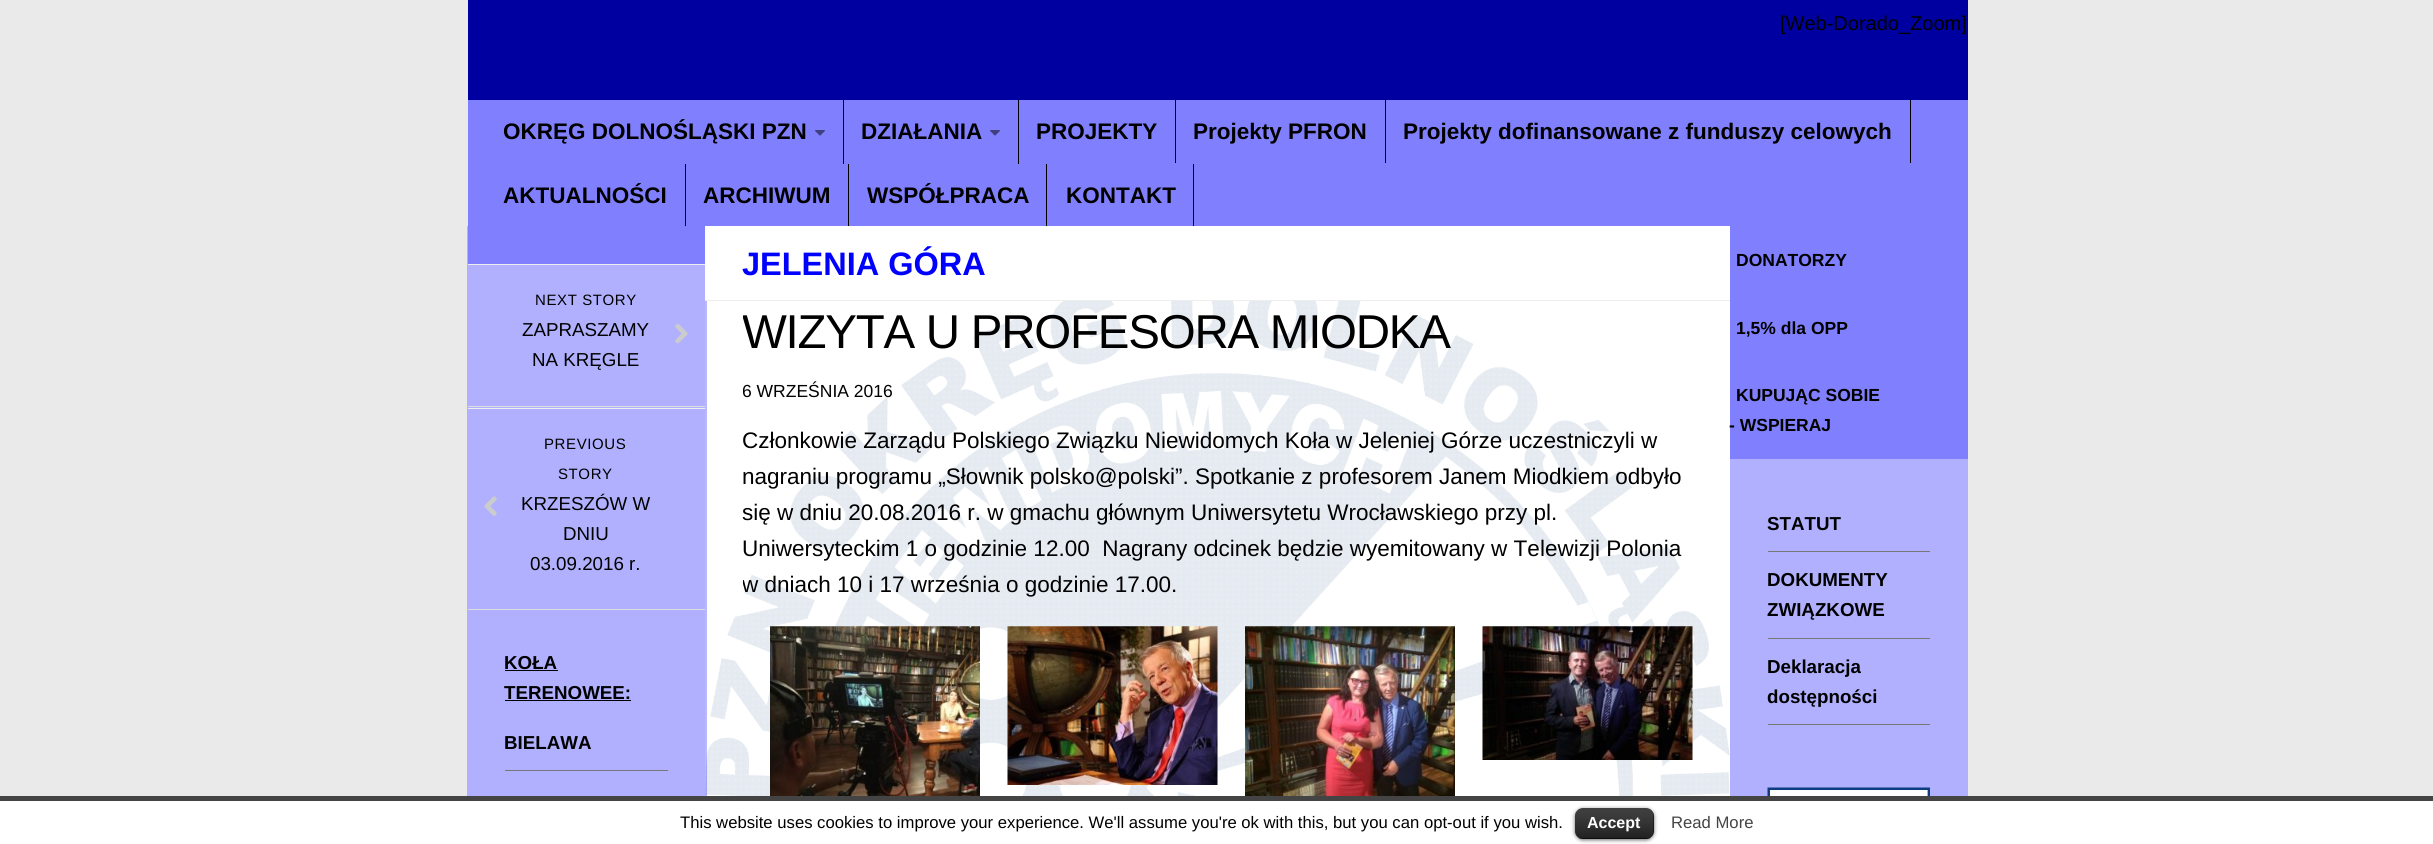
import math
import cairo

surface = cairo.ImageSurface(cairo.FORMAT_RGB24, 2433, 844)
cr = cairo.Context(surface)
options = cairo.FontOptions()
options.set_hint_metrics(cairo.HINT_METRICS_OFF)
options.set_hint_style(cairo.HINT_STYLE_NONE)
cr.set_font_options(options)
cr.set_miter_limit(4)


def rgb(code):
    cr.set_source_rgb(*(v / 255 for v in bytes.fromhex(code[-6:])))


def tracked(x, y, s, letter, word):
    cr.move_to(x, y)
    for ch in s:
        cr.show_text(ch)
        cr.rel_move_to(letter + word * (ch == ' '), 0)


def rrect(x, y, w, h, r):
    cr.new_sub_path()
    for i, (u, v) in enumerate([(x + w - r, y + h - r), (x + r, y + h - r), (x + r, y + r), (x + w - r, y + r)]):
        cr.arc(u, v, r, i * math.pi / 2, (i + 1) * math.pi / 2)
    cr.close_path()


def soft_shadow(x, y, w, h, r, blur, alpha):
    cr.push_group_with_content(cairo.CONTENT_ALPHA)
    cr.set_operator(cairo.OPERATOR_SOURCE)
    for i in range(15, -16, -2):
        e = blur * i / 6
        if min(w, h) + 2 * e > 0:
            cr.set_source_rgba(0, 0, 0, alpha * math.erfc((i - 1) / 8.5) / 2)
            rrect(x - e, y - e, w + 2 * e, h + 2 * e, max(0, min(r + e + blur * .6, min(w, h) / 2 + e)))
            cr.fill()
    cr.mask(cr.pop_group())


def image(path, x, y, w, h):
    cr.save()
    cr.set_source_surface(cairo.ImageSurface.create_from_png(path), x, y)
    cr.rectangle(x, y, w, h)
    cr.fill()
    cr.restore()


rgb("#eaeaea")
cr.paint()
for x, y, w, h, color in [
    (468, 0, 1500, 100, "#0000a0"),
    (468, 100, 1500, 126, "#8080ff"),
    (843, 100, 1, 64, "#000000"),
]:
    rgb(color)
    cr.rectangle(x, y, w, h)
    cr.fill()
image("img/1.png", 815, 130, 10, 6)
cr.rectangle(1018, 100, 1, 64)
cr.fill()
image("img/1.png", 990, 130, 10, 6)
for x, y, w, h, color in [
    (1175, 100, 1, 63, "#000000"),
    (1385, 100, 1, 63, "#000000"),
    (1910, 100, 1, 63, "#000000"),
    (685, 164, 1, 62, "#000000"),
    (848, 164, 1, 62, "#000000"),
    (1046, 164, 1, 62, "#000000"),
    (1193, 164, 1, 62, "#000000"),
    (707, 301, 1023, 495, "#ffffff"),
    (1730, 459, 238, 337, "#b0b0ff"),
    (467, 226, 240, 570, "#b0b0ff"),
    (468, 226, 237, 38, "#8080ff"),
    (468, 264, 237, 1, "#eeeeee"),
    (468, 406, 237, 1, "#dddddd"),
]:
    rgb(color)
    cr.rectangle(x, y, w, h)
    cr.fill()
image("img/2.png", 675, 324, 13, 20)
rgb("#eeeeee")
cr.rectangle(468, 408, 237, 1)
cr.fill()
rgb("#dddddd")
cr.rectangle(468, 609, 237, 1)
cr.fill()
image("img/3.png", 484, 496, 13, 20)
for x, y, w, h, color in [
    (505, 670, 53, 1, "#000000"),
    (505, 700, 126, 1, "#000000"),
    (505, 770, 163, 1, "#777777"),
]:
    rgb(color)
    cr.rectangle(x, y, w, h)
    cr.fill()
image("img/4.png", 705, 301, 1025, 495)
rgb("#ffffff")
cr.rectangle(705, 226, 1025, 74)
cr.fill()
rgb("#eeeeee")
cr.rectangle(705, 300, 1025, 1)
cr.fill()
image("img/5.png", 770, 626, 210, 170)
image("img/6.png", 1007, 626, 211, 159)
image("img/7.png", 1245, 626, 210, 170)
image("img/8.png", 1482, 626, 211, 134)
for x, y, w, h, color in [
    (1730, 226, 238, 233, "#8080ff"),
    (1768, 551, 162, 1, "#777777"),
    (1768, 638, 162, 1, "#777777"),
    (1768, 724, 162, 1, "#777777"),
]:
    rgb(color)
    cr.rectangle(x, y, w, h)
    cr.fill()
image("img/9.png", 1767, 787, 163, 9)
rgb("#ffffff")
cr.rectangle(0, 801, 2433, 43)
cr.fill()
rgb("#444444")
cr.rectangle(0, 796, 2433, 5)
cr.fill()
rgb("#000000")
soft_shadow(1575, 809, 79, 31, 8, 2, 0.6)
rgb("#000000")
rrect(1575, 808, 79, 31, 8)
cr.fill()
image("img/10.png", 1575, 808, 79, 31)
cr.set_source_rgba(0, 0, 0, 0.25)
cr.rectangle(1579, 838, 71, 1)
cr.fill()
cr.select_font_face("Liberation Sans")
cr.set_font_size(20)
rgb("#000000")
cr.move_to(1780, 30)
cr.show_text("[Web-Dorado_Zoom]")
cr.select_font_face("Liberation Sans", cairo.FONT_SLANT_NORMAL, cairo.FONT_WEIGHT_BOLD)
cr.set_font_size(22.5)
for x, y, s in [
    (503, 139, "OKRĘG DOLNOŚLĄSKI PZN"),
    (861, 139, "DZIAŁANIA"),
    (1036, 139, "PROJEKTY"),
    (1193, 139, "Projekty PFRON"),
    (1403, 139, "Projekty dofinansowane z funduszy celowych"),
    (503, 203, "AKTUALNOŚCI"),
    (703, 203, "ARCHIWUM"),
    (867, 203, "WSPÓŁPRACA"),
    (1066, 203, "KONTAKT"),
]:
    cr.move_to(x, y)
    cr.show_text(s)
cr.select_font_face("Liberation Sans")
cr.set_font_size(15)
tracked(535, 305, "NEXT STORY", 0.6, 0)
cr.set_font_size(18.75)
cr.move_to(522, 336)
cr.show_text("ZAPRASZAMY")
cr.move_to(532, 366)
cr.show_text("NA KRĘGLE")
cr.set_font_size(15)
tracked(544, 449, "PREVIOUS", 0.6, 0)
tracked(558, 479, "STORY", 0.6, 0)
cr.set_font_size(18.75)
for x, y, s in [
    (521, 510, "KRZESZÓW W"),
    (563, 540, "DNIU"),
    (530, 570, "03.09.2016 r."),
]:
    cr.move_to(x, y)
    cr.show_text(s)
cr.select_font_face("Liberation Sans", cairo.FONT_SLANT_NORMAL, cairo.FONT_WEIGHT_BOLD)
for x, y, s in [
    (504, 669, "KOŁA"),
    (504, 699, "TERENOWEE:"),
    (504, 749, "BIELAWA"),
]:
    cr.move_to(x, y)
    cr.show_text(s)
cr.set_font_size(32.5)
rgb("#0000ff")
cr.move_to(742, 275)
cr.show_text("JELENIA GÓRA")
cr.save()
cr.rectangle(743, 301, 950, 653)
cr.clip()
cr.select_font_face("Liberation Sans")
cr.set_font_size(47.5)
rgb("#000000")
tracked(742, 348, "WIZYTA U PROFESORA MIODKA", -1.25, 0)
cr.set_font_size(17.5)
cr.move_to(742, 397)
cr.show_text("6 WRZEŚNIA 2016")
cr.restore()
cr.select_font_face("Liberation Sans")
cr.set_font_size(22.5)
rgb("#000000")
for x, y, s in [
    (742, 448, "Członkowie Zarządu Polskiego Związku Niewidomych Koła w Jeleniej Górze uczestniczyli w"),
    (742, 484, "nagraniu programu „Słownik polsko@polski”. Spotkanie z profesorem Janem Miodkiem odbyło"),
    (742, 520, "się w dniu 20.08.2016 r. w gmachu głównym Uniwersytetu Wrocławskiego przy pl."),
    (742, 556, "Uniwersyteckim 1 o godzinie 12.00  Nagrany odcinek będzie wyemitowany w Telewizji Polonia"),
]:
    cr.move_to(x, y)
    cr.show_text(s)
cr.save()
cr.rectangle(743, 301, 950, 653)
cr.clip()
cr.move_to(742, 592)
cr.show_text("w dniach 10 i 17 września o godzinie 17.00.")
cr.restore()
cr.select_font_face("Liberation Sans", cairo.FONT_SLANT_NORMAL, cairo.FONT_WEIGHT_BOLD)
cr.set_font_size(17.5)
for x, y, s in [
    (1736, 266, "DONATORZY"),
    (1736, 334, "1,5% dla OPP"),
    (1736, 401, "KUPUJĄC SOBIE"),
    (1729, 431, "- WSPIERAJ"),
]:
    cr.move_to(x, y)
    cr.show_text(s)
cr.set_font_size(18.75)
for x, y, s in [
    (1767, 530, "STATUT"),
    (1767, 586, "DOKUMENTY"),
    (1767, 616, "ZWIĄZKOWE"),
    (1767, 673, "Deklaracja"),
    (1767, 703, "dostępności"),
]:
    cr.move_to(x, y)
    cr.show_text(s)
cr.select_font_face("Liberation Sans")
cr.set_font_size(16.67)
cr.move_to(680, 828)
cr.show_text("This website uses cookies to improve your experience. We'll assume you're ok with this, but you can opt-out if you wish.")
cr.select_font_face("Liberation Sans", cairo.FONT_SLANT_NORMAL, cairo.FONT_WEIGHT_BOLD)
cr.set_font_size(16)
rgb("#ffffff")
cr.move_to(1587, 828)
cr.show_text("Accept")
cr.select_font_face("Liberation Sans")
cr.set_font_size(16.67)
rgb("#444444")
cr.move_to(1671, 828)
cr.show_text("Read More")
surface.write_to_png("page.png")
